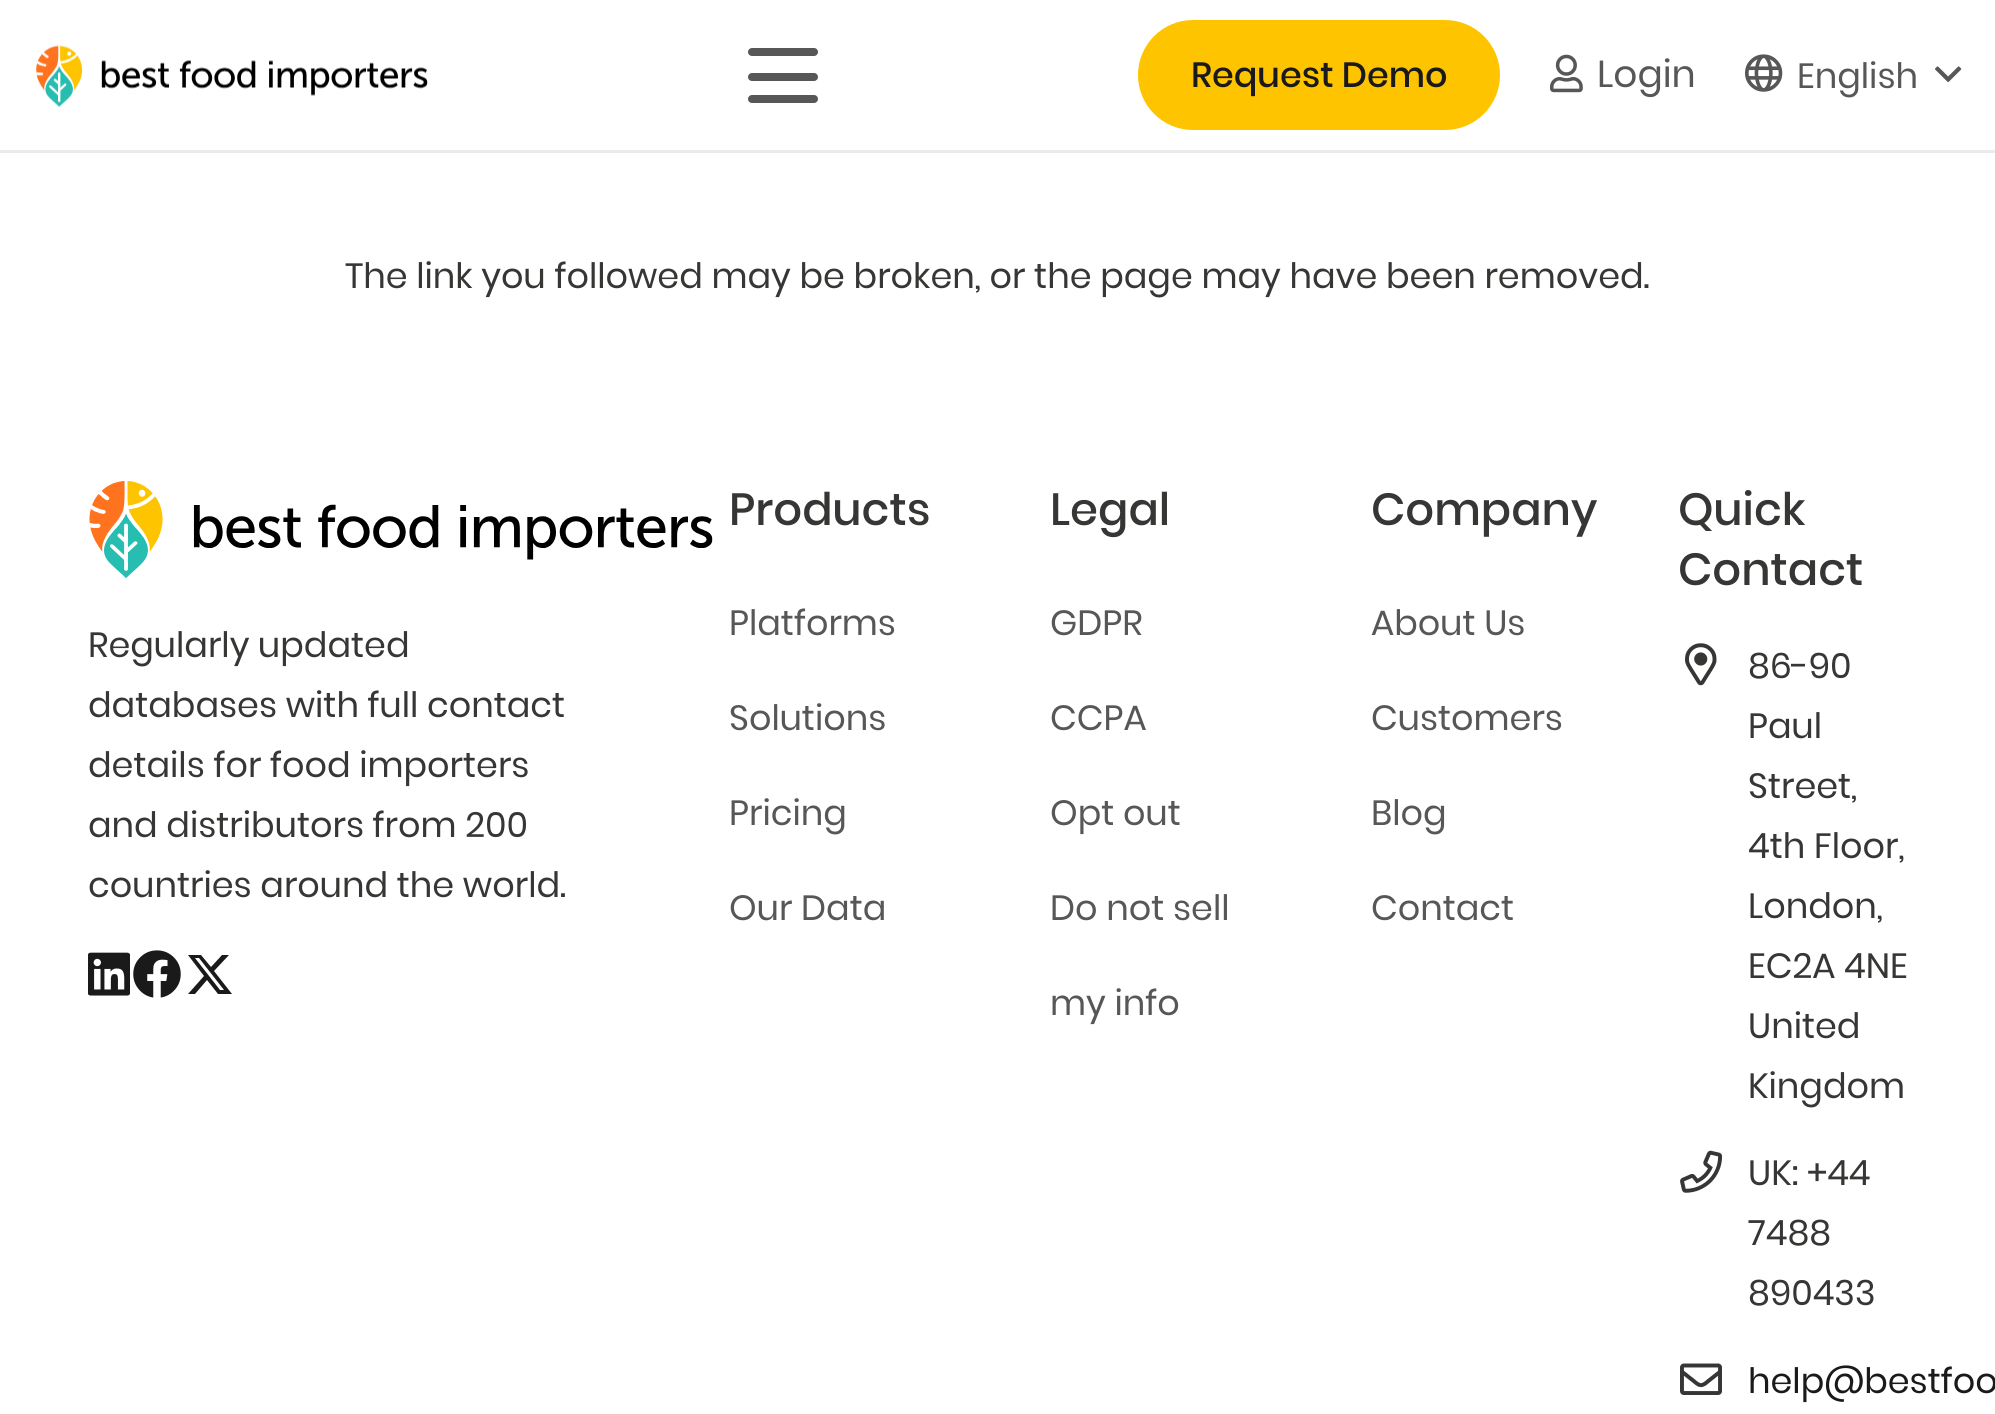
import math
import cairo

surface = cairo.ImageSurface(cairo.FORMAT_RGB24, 1995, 1414)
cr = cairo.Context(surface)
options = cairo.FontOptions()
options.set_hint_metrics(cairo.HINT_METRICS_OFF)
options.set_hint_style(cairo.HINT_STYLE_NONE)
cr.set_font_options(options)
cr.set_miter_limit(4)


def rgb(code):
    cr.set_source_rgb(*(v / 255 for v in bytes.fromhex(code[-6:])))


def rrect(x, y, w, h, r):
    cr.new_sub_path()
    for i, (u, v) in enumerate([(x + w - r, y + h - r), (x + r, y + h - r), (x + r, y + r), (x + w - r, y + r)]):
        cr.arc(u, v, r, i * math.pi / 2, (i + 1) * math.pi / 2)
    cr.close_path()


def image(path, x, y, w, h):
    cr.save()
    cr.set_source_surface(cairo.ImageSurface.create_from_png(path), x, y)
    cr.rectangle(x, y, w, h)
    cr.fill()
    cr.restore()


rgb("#ffffff")
cr.paint()
cr.set_source_rgba(0, 0, 0, 0.08)
cr.rectangle(0, 150, 1995, 3)
cr.fill()
image("img/1.png", 36, 45, 392, 63)
rgb("#575757")
rrect(748, 73, 70, 8, 4)
cr.fill()
rrect(748, 48, 70, 8, 4)
cr.fill()
rrect(748, 95, 70, 8, 4)
cr.fill()
rgb("#ffc400")
rrect(1138, 20, 362, 110, 55)
cr.fill()
image("img/2.png", 1550, 54, 33, 39)
image("img/3.png", 1745, 54, 38, 38)
image("img/4.png", 1935, 66, 27, 17)
image("img/5.png", 89, 481, 624, 98)
image("img/6.png", 88, 952, 42, 44)
image("img/7.png", 133, 950, 48, 48)
rgb("#1a1a1a")
cr.new_path()
cr.move_to(222, 955)
cr.line_to(229, 955)
cr.line_to(214, 971)
cr.line_to(232, 994)
cr.line_to(218, 994)
cr.line_to(207, 980)
cr.line_to(195, 994)
cr.line_to(188, 994)
cr.line_to(204, 976)
cr.line_to(188, 955)
cr.line_to(201, 955)
cr.line_to(211, 967)
cr.close_path()
cr.move_to(220, 990)
cr.line_to(224, 990)
cr.line_to(199, 958)
cr.line_to(195, 958)
cr.close_path()
cr.fill()
image("img/8.png", 1685, 643, 32, 43)
image("img/9.png", 1680, 1150, 43, 43)
image("img/10.png", 1680, 1363, 42, 32)
cr.select_font_face("Poppins Medium")
cr.set_font_size(35)
cr.move_to(1191, 87)
cr.show_text("Request Demo")
cr.select_font_face("Poppins")
cr.set_font_size(37.5)
rgb("#575757")
cr.move_to(1597, 87)
cr.show_text("Login")
cr.set_font_size(35)
cr.move_to(1797, 88)
cr.show_text("English")
rgb("#363635")
for x, y, s in [
    (345, 288, "The link you followed may be broken, or the page may have been removed."),
    (88, 657, "Regularly updated"),
    (88, 717, "databases with full contact"),
    (88, 777, "details for food importers"),
    (88, 837, "and distributors from 200"),
    (88, 897, "countries around the world."),
]:
    cr.move_to(x, y)
    cr.show_text(s)
cr.select_font_face("Poppins Medium")
cr.set_font_size(45)
cr.move_to(729, 525)
cr.show_text("Products")
cr.select_font_face("Poppins")
cr.set_font_size(35)
rgb("#575757")
for x, y, s in [
    (729, 635, "Platforms"),
    (729, 730, "Solutions"),
    (729, 825, "Pricing"),
    (729, 920, "Our Data"),
]:
    cr.move_to(x, y)
    cr.show_text(s)
cr.select_font_face("Poppins Medium")
cr.set_font_size(45)
rgb("#363635")
cr.move_to(1050, 525)
cr.show_text("Legal")
cr.select_font_face("Poppins")
cr.set_font_size(35)
rgb("#575757")
for x, y, s in [
    (1050, 635, "GDPR"),
    (1050, 730, "CCPA"),
    (1050, 825, "Opt out"),
    (1050, 920, "Do not sell"),
    (1050, 1015, "my info"),
]:
    cr.move_to(x, y)
    cr.show_text(s)
cr.select_font_face("Poppins Medium")
cr.set_font_size(45)
rgb("#363635")
cr.move_to(1371, 525)
cr.show_text("Company")
cr.select_font_face("Poppins")
cr.set_font_size(35)
rgb("#575757")
for x, y, s in [
    (1371, 635, "About Us"),
    (1371, 730, "Customers"),
    (1371, 825, "Blog"),
    (1371, 920, "Contact"),
]:
    cr.move_to(x, y)
    cr.show_text(s)
cr.select_font_face("Poppins Medium")
cr.set_font_size(45)
rgb("#363635")
cr.move_to(1678, 525)
cr.show_text("Quick")
cr.move_to(1678, 585)
cr.show_text("Contact")
cr.select_font_face("Poppins")
cr.set_font_size(35)
for x, y, s in [
    (1748, 678, "86-90"),
    (1748, 738, "Paul"),
    (1748, 798, "Street,"),
    (1748, 858, "4th Floor,"),
    (1748, 918, "London,"),
    (1748, 978, "EC2A 4NE"),
    (1748, 1038, "United"),
    (1748, 1098, "Kingdom"),
    (1748, 1185, "UK: +44"),
    (1748, 1245, "7488"),
    (1748, 1305, "890433"),
]:
    cr.move_to(x, y)
    cr.show_text(s)
rgb("#1a1a1a")
cr.move_to(1748, 1393)
cr.show_text("help@bestfoo")
surface.write_to_png("page.png")
